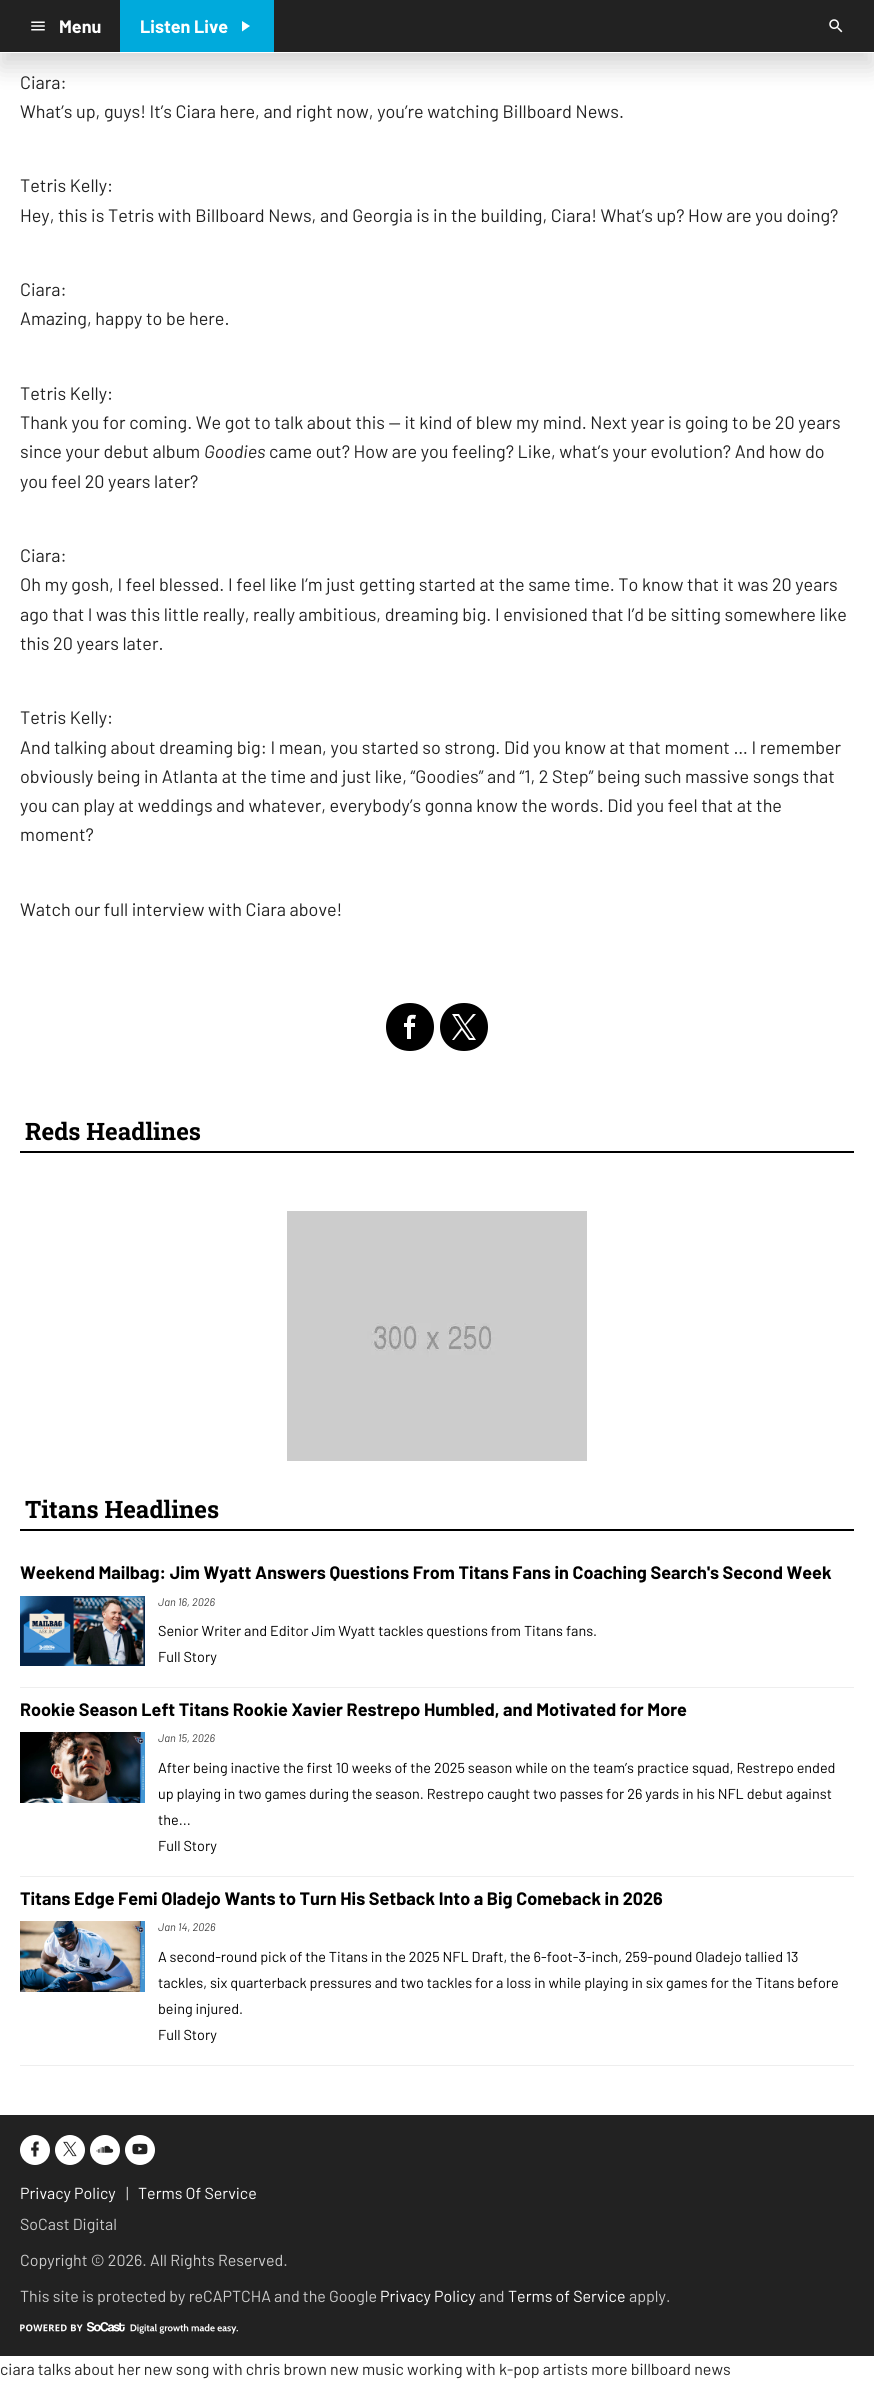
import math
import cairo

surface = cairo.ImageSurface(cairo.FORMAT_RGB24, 874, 2382)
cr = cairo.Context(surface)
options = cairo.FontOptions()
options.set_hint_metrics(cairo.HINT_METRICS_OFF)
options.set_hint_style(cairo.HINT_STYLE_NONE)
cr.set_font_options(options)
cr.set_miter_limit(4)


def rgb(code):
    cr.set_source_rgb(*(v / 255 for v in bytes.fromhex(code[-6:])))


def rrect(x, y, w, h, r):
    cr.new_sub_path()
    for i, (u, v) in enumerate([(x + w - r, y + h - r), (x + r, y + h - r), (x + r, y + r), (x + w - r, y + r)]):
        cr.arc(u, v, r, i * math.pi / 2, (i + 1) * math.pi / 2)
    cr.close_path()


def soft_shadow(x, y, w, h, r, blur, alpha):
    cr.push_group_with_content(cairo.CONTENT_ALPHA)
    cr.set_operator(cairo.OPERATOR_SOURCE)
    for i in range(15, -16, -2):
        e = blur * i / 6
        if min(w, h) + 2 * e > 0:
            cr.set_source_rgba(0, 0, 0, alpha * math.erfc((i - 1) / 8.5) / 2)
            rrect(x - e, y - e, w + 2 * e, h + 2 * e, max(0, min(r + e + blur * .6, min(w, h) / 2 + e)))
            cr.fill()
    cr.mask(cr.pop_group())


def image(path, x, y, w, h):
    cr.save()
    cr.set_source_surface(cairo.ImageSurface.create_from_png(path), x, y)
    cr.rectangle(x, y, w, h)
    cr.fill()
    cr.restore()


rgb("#ffffff")
cr.paint()
rgb("#000000")
soft_shadow(0, 13, 874, 54, 0, 12.5, 0.16)
rgb("#222222")
cr.rectangle(0, 0, 874, 52)
cr.fill()
rgb("#ffffff")
cr.rectangle(0, 52, 874, 1)
cr.fill()
image("img/1.png", 31, 21, 14, 10)
rgb("#00aadc")
cr.rectangle(120, 0, 154, 52)
cr.fill()
rgb("#ffffff")
cr.new_path()
cr.move_to(242, 21)
cr.line_to(242, 31.5)
cr.line_to(250, 26)
cr.close_path()
cr.fill()
image("img/2.png", 829, 19, 14, 14)
rgb("#000000")
cr.new_path()
cr.move_to(410, 1003)
cr.curve_to(378, 1003, 378, 1051, 410, 1051)
cr.curve_to(442, 1051, 442, 1003, 410, 1003)
cr.close_path()
cr.move_to(415, 1023)
cr.line_to(415, 1027)
cr.line_to(411, 1027)
cr.line_to(411, 1039)
cr.line_to(407, 1039)
cr.line_to(407, 1027)
cr.line_to(404, 1027)
cr.line_to(404, 1023)
cr.line_to(407, 1023)
cr.curve_to(407, 1016, 408, 1014, 416, 1015)
cr.line_to(415, 1019)
cr.curve_to(411, 1018, 411, 1019, 411, 1023)
cr.close_path()
cr.fill()
cr.new_path()
cr.move_to(464, 1051)
cr.curve_to(496, 1051, 496, 1003, 464, 1003)
cr.curve_to(432, 1003, 432, 1051, 464, 1051)
cr.close_path()
cr.move_to(476, 1014)
cr.line_to(466, 1025)
cr.line_to(476, 1040)
cr.line_to(469, 1040)
cr.line_to(462, 1030)
cr.line_to(454, 1040)
cr.line_to(452, 1040)
cr.line_to(461, 1028)
cr.line_to(452, 1014)
cr.line_to(459, 1014)
cr.line_to(465, 1024)
cr.line_to(473, 1014)
cr.close_path()
cr.move_to(462, 1027)
cr.line_to(470, 1038)
cr.line_to(473, 1038)
cr.line_to(458, 1016)
cr.line_to(455, 1016)
cr.close_path()
cr.fill()
cr.rectangle(20, 1151, 834, 2)
cr.fill()
image("img/3.png", 287, 1211, 300, 250)
cr.rectangle(20, 1529, 834, 2)
cr.fill()
image("img/4.png", 20, 1596, 125, 70)
rgb("#eeeeee")
cr.rectangle(20, 1687, 834, 1)
cr.fill()
image("img/5.png", 20, 1732, 125, 71)
cr.rectangle(20, 1876, 834, 1)
cr.fill()
image("img/6.png", 20, 1921, 125, 71)
cr.rectangle(20, 2065, 834, 1)
cr.fill()
rgb("#222222")
cr.rectangle(0, 2115, 874, 241)
cr.fill()
rgb("#ffffff")
cr.arc(35, 2150, 15, 0, 2 * math.pi)
cr.fill()
image("img/7.png", 31, 2141, 8, 16)
cr.arc(70, 2150, 15, 0, 2 * math.pi)
cr.fill()
image("img/8.png", 63, 2141, 14, 16)
cr.arc(105, 2150, 15, 0, 2 * math.pi)
cr.fill()
image("img/9.png", 96, 2145, 18, 8)
cr.arc(140, 2150, 15, 0, 2 * math.pi)
cr.fill()
image("img/10.png", 132, 2143, 16, 12)
image("img/11.png", 20, 2322, 218, 12)
cr.select_font_face("Barlow", cairo.FONT_SLANT_NORMAL, cairo.FONT_WEIGHT_BOLD)
cr.set_font_size(18)
cr.move_to(59, 33)
cr.show_text("Menu")
cr.move_to(140, 33)
cr.show_text("Listen Live")
cr.select_font_face("Barlow")
rgb("#222222")
for x, y, s in [
    (20, 89, "Ciara:"),
    (20, 118, "What’s up, guys! It’s Ciara here, and right now, you’re watching Billboard News."),
    (20, 192, "Tetris Kelly:"),
    (20, 222, "Hey, this is Tetris with Billboard News, and Georgia is in the building, Ciara! What’s up? How are you doing?"),
    (20, 296, "Ciara:"),
    (20, 325, "Amazing, happy to be here."),
    (20, 400, "Tetris Kelly:"),
    (20, 429, "Thank you for coming. We got to talk about this — it kind of blew my mind. Next year is going to be 20 years"),
    (20, 458, "since your debut album"),
]:
    cr.move_to(x, y)
    cr.show_text(s)
cr.select_font_face("Barlow", cairo.FONT_SLANT_ITALIC)
cr.move_to(204, 458)
cr.show_text("Goodies")
cr.select_font_face("Barlow")
for x, y, s in [
    (269, 458, "came out? How are you feeling? Like, what’s your evolution? And how do"),
    (20, 488, "you feel 20 years later?"),
    (20, 562, "Ciara:"),
    (20, 591, "Oh my gosh, I feel blessed. I feel like I’m just getting started at the same time. To know that it was 20 years"),
    (20, 621, "ago that I was this little really, really ambitious, dreaming big. I envisioned that I’d be sitting somewhere like"),
    (20, 650, "this 20 years later."),
    (20, 724, "Tetris Kelly:"),
    (20, 754, "And talking about dreaming big: I mean, you started so strong. Did you know at that moment … I remember"),
    (20, 783, "obviously being in Atlanta at the time and just like, “Goodies” and “1, 2 Step” being such massive songs that"),
    (20, 812, "you can play at weddings and whatever, everybody’s gonna know the words. Did you feel that at the"),
    (20, 841, "moment?"),
    (20, 916, "Watch our full interview with Ciara above!"),
]:
    cr.move_to(x, y)
    cr.show_text(s)
cr.select_font_face("Roboto Slab", cairo.FONT_SLANT_NORMAL, cairo.FONT_WEIGHT_BOLD)
cr.set_font_size(24)
rgb("#000000")
cr.move_to(25, 1140)
cr.show_text("Reds Headlines")
cr.move_to(25, 1518)
cr.show_text("Titans Headlines")
cr.select_font_face("Barlow", cairo.FONT_SLANT_NORMAL, cairo.FONT_WEIGHT_BOLD)
cr.set_font_size(18)
cr.move_to(20, 1579)
cr.show_text("Weekend Mailbag: Jim Wyatt Answers Questions From Titans Fans in Coaching Search's Second Week")
cr.select_font_face("Barlow", cairo.FONT_SLANT_ITALIC)
cr.set_font_size(11)
rgb("#404040")
cr.move_to(158, 1606)
cr.show_text("Jan 16, 2026")
cr.select_font_face("Barlow")
cr.set_font_size(14.4)
rgb("#000000")
cr.move_to(158, 1636)
cr.show_text("Senior Writer and Editor Jim Wyatt tackles questions from Titans fans.")
cr.move_to(158, 1662)
cr.show_text("Full Story")
cr.select_font_face("Barlow", cairo.FONT_SLANT_NORMAL, cairo.FONT_WEIGHT_BOLD)
cr.set_font_size(18)
cr.move_to(20, 1716)
cr.show_text("Rookie Season Left Titans Rookie Xavier Restrepo Humbled, and Motivated for More")
cr.select_font_face("Barlow", cairo.FONT_SLANT_ITALIC)
cr.set_font_size(11)
rgb("#404040")
cr.move_to(158, 1742)
cr.show_text("Jan 15, 2026")
cr.select_font_face("Barlow")
cr.set_font_size(14.4)
rgb("#000000")
for x, y, s in [
    (158, 1773, "After being inactive the first 10 weeks of the 2025 season while on the team’s practice squad, Restrepo ended"),
    (158, 1799, "up playing in two games during the season. Restrepo caught two passes for 26 yards in his NFL debut against"),
    (158, 1825, "the..."),
    (158, 1851, "Full Story"),
]:
    cr.move_to(x, y)
    cr.show_text(s)
cr.select_font_face("Barlow", cairo.FONT_SLANT_NORMAL, cairo.FONT_WEIGHT_BOLD)
cr.set_font_size(18)
cr.move_to(20, 1905)
cr.show_text("Titans Edge Femi Oladejo Wants to Turn His Setback Into a Big Comeback in 2026")
cr.select_font_face("Barlow", cairo.FONT_SLANT_ITALIC)
cr.set_font_size(11)
rgb("#404040")
cr.move_to(158, 1931)
cr.show_text("Jan 14, 2026")
cr.select_font_face("Barlow")
cr.set_font_size(14.4)
rgb("#000000")
for x, y, s in [
    (158, 1962, "A second-round pick of the Titans in the 2025 NFL Draft, the 6-foot-3-inch, 259-pound Oladejo tallied 13"),
    (158, 1988, "tackles, six quarterback pressures and two tackles for a loss in while playing in six games for the Titans before"),
    (158, 2014, "being injured."),
    (158, 2040, "Full Story"),
]:
    cr.move_to(x, y)
    cr.show_text(s)
cr.set_font_size(16)
rgb("#ffffff")
cr.move_to(20, 2199)
cr.show_text("Privacy Policy")
rgb("#cccccc")
cr.move_to(126, 2199)
cr.show_text("|")
rgb("#ffffff")
cr.move_to(138, 2199)
cr.show_text("Terms Of Service")
rgb("#cccccc")
for x, y, s in [
    (20, 2230, "SoCast Digital"),
    (20, 2266, "Copyright © 2026. All Rights Reserved."),
    (20, 2302, "This site is protected by reCAPTCHA and the Google"),
]:
    cr.move_to(x, y)
    cr.show_text(s)
rgb("#ffffff")
cr.move_to(380, 2302)
cr.show_text("Privacy Policy")
rgb("#cccccc")
cr.move_to(479, 2302)
cr.show_text("and")
rgb("#ffffff")
cr.move_to(508, 2302)
cr.show_text("Terms of Service")
rgb("#cccccc")
cr.move_to(629, 2302)
cr.show_text("apply.")
rgb("#222222")
cr.move_to(0, 2375)
cr.show_text("ciara talks about her new song with chris brown new music working with k-pop artists more billboard news")
surface.write_to_png("page.png")
